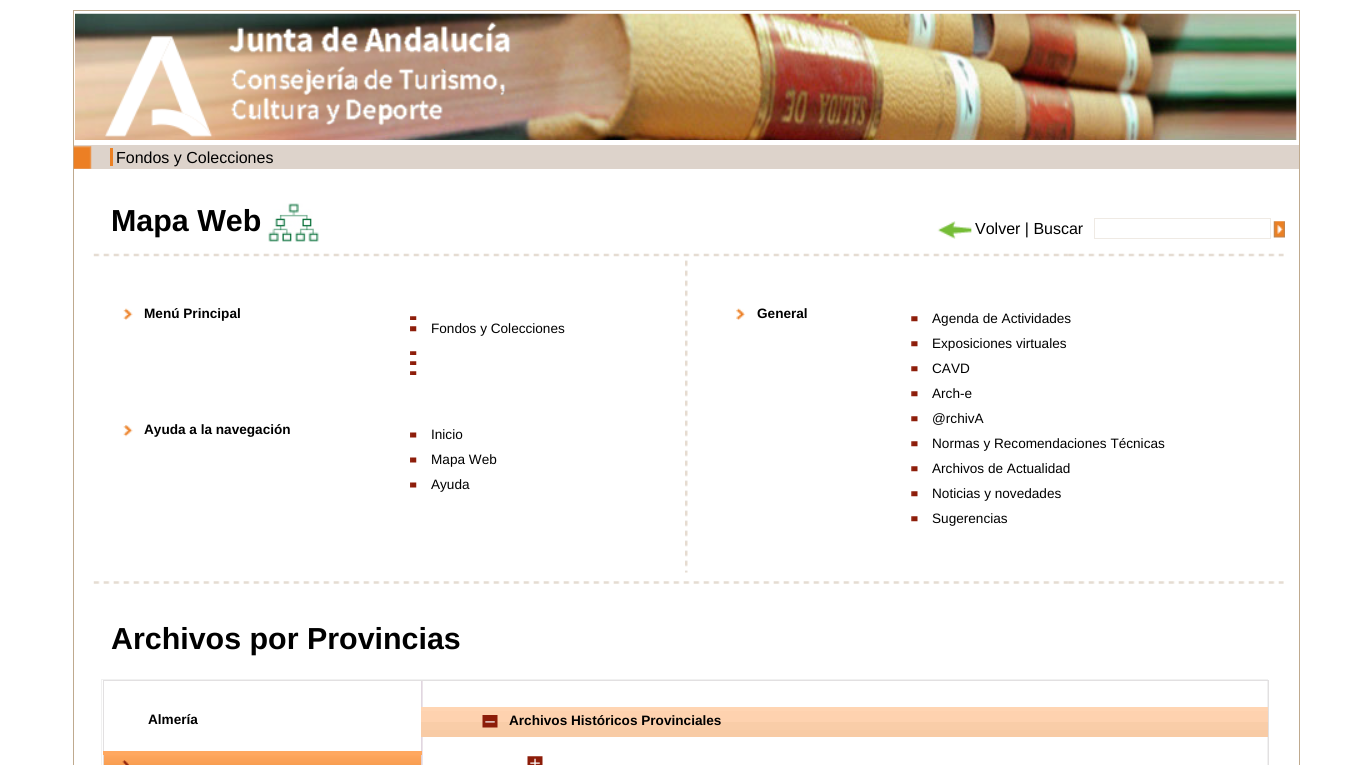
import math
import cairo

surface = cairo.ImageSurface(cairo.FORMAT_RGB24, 1371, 765)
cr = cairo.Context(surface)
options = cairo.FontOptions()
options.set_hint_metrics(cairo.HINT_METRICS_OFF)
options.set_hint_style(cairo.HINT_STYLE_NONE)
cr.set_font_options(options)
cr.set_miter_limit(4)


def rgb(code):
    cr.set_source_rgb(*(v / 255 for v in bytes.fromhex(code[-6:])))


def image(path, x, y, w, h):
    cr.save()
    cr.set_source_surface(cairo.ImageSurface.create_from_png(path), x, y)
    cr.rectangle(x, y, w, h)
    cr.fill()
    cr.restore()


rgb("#ffffff")
cr.paint()
cr.rectangle(73.5, 10.5, 1226, 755)
rgb("#bfaa8f")
cr.set_line_width(1)
cr.stroke()
image("img/1.png", 75, 13, 1222, 127)
image("img/2.png", 105, 36, 108, 101)
image("img/3.png", 228, 22, 283, 104)
rgb("#ddd3cb")
cr.rectangle(74, 145, 1225, 24)
cr.fill()
image("img/4.png", 73, 146, 19, 23)
rgb("#eb8023")
cr.rectangle(110, 148, 3, 18)
cr.fill()
image("img/5.png", 268, 203, 51, 39)
image("img/6.png", 937, 221, 35, 18)
cr.rectangle(1094.5, 218.5, 176, 20)
rgb("#efeae4")
cr.stroke()
image("img/7.png", 1273, 221, 12, 17)
image("img/8.png", 93, 253, 1191, 4)
image("img/9.png", 685, 260, 3, 313)
image("img/10.png", 123, 308, 10, 12)
image("img/11.png", 410, 316, 7, 4)
image("img/12.png", 410, 326, 7, 6)
image("img/11.png", 410, 351, 7, 4)
image("img/11.png", 410, 361, 7, 4)
image("img/11.png", 410, 371, 7, 4)
image("img/13.png", 123, 425, 10, 12)
image("img/14.png", 410, 432, 7, 6)
image("img/14.png", 410, 457, 7, 6)
image("img/14.png", 410, 482, 7, 6)
image("img/15.png", 736, 308, 9, 12)
image("img/16.png", 911, 316, 7, 6)
image("img/16.png", 911, 341, 7, 6)
image("img/16.png", 911, 366, 7, 6)
image("img/16.png", 911, 391, 7, 6)
image("img/16.png", 911, 416, 7, 6)
image("img/16.png", 911, 441, 7, 6)
image("img/16.png", 911, 466, 7, 6)
image("img/16.png", 911, 491, 7, 6)
image("img/16.png", 911, 516, 7, 6)
image("img/17.png", 93, 581, 1191, 3)
cr.rectangle(101.5, 679.5, 1166, 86)
rgb("#f1f1f1")
cr.stroke()
image("img/18.png", 421, 681, 2, 84)
cr.rectangle(103.5, 680.5, 1165, 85)
rgb("#e2e0e1")
cr.stroke()
rgb("#ffa860")
cr.rectangle(103, 751, 319, 4)
cr.fill()
image("img/19.png", 103, 755, 319, 10)
image("img/20.png", 122, 760, 7, 5)
for x, y, w, h, color in [
    (421, 707, 847, 4, "#ffd5b3"),
    (421, 722, 847, 8, "#f9cda8"),
    (421, 711, 847, 11, "#fed2af"),
]:
    rgb(color)
    cr.rectangle(x, y, w, h)
    cr.fill()
image("img/21.png", 482, 715, 16, 13)
rgb("#f8cba5")
cr.rectangle(421, 730, 847, 7)
cr.fill()
image("img/22.png", 527, 756, 16, 9)
cr.select_font_face("Liberation Sans")
cr.set_font_size(16)
rgb("#000000")
cr.move_to(116, 163)
cr.show_text("Fondos y Colecciones")
cr.select_font_face("Liberation Sans", cairo.FONT_SLANT_NORMAL, cairo.FONT_WEIGHT_BOLD)
cr.set_font_size(30.4)
cr.move_to(111, 231)
cr.show_text("Mapa Web")
cr.select_font_face("Liberation Sans")
cr.set_font_size(16)
cr.move_to(975, 234)
cr.show_text("Volver | Buscar")
cr.select_font_face("Liberation Sans", cairo.FONT_SLANT_NORMAL, cairo.FONT_WEIGHT_BOLD)
cr.set_font_size(13.6)
cr.move_to(144, 318)
cr.show_text("Menú Principal")
cr.select_font_face("Liberation Sans")
cr.move_to(431, 333)
cr.show_text("Fondos y Colecciones")
cr.select_font_face("Liberation Sans", cairo.FONT_SLANT_NORMAL, cairo.FONT_WEIGHT_BOLD)
cr.move_to(144, 434)
cr.show_text("Ayuda a la navegación")
cr.select_font_face("Liberation Sans")
for x, y, s in [
    (431, 439, "Inicio"),
    (431, 464, "Mapa Web"),
    (431, 489, "Ayuda"),
]:
    cr.move_to(x, y)
    cr.show_text(s)
cr.select_font_face("Liberation Sans", cairo.FONT_SLANT_NORMAL, cairo.FONT_WEIGHT_BOLD)
cr.move_to(757, 318)
cr.show_text("General")
cr.select_font_face("Liberation Sans")
for x, y, s in [
    (932, 323, "Agenda de Actividades"),
    (932, 348, "Exposiciones virtuales"),
    (932, 373, "CAVD"),
    (932, 398, "Arch-e"),
    (932, 423, "@rchivA"),
    (932, 448, "Normas y Recomendaciones Técnicas"),
    (932, 473, "Archivos de Actualidad"),
    (932, 498, "Noticias y novedades"),
    (932, 523, "Sugerencias"),
]:
    cr.move_to(x, y)
    cr.show_text(s)
cr.select_font_face("Liberation Sans", cairo.FONT_SLANT_NORMAL, cairo.FONT_WEIGHT_BOLD)
cr.set_font_size(30.4)
cr.move_to(111, 649)
cr.show_text("Archivos por Provincias")
cr.set_font_size(13.6)
cr.move_to(148, 724)
cr.show_text("Almería")
cr.move_to(509, 725)
cr.show_text("Archivos Históricos Provinciales")
surface.write_to_png("page.png")
